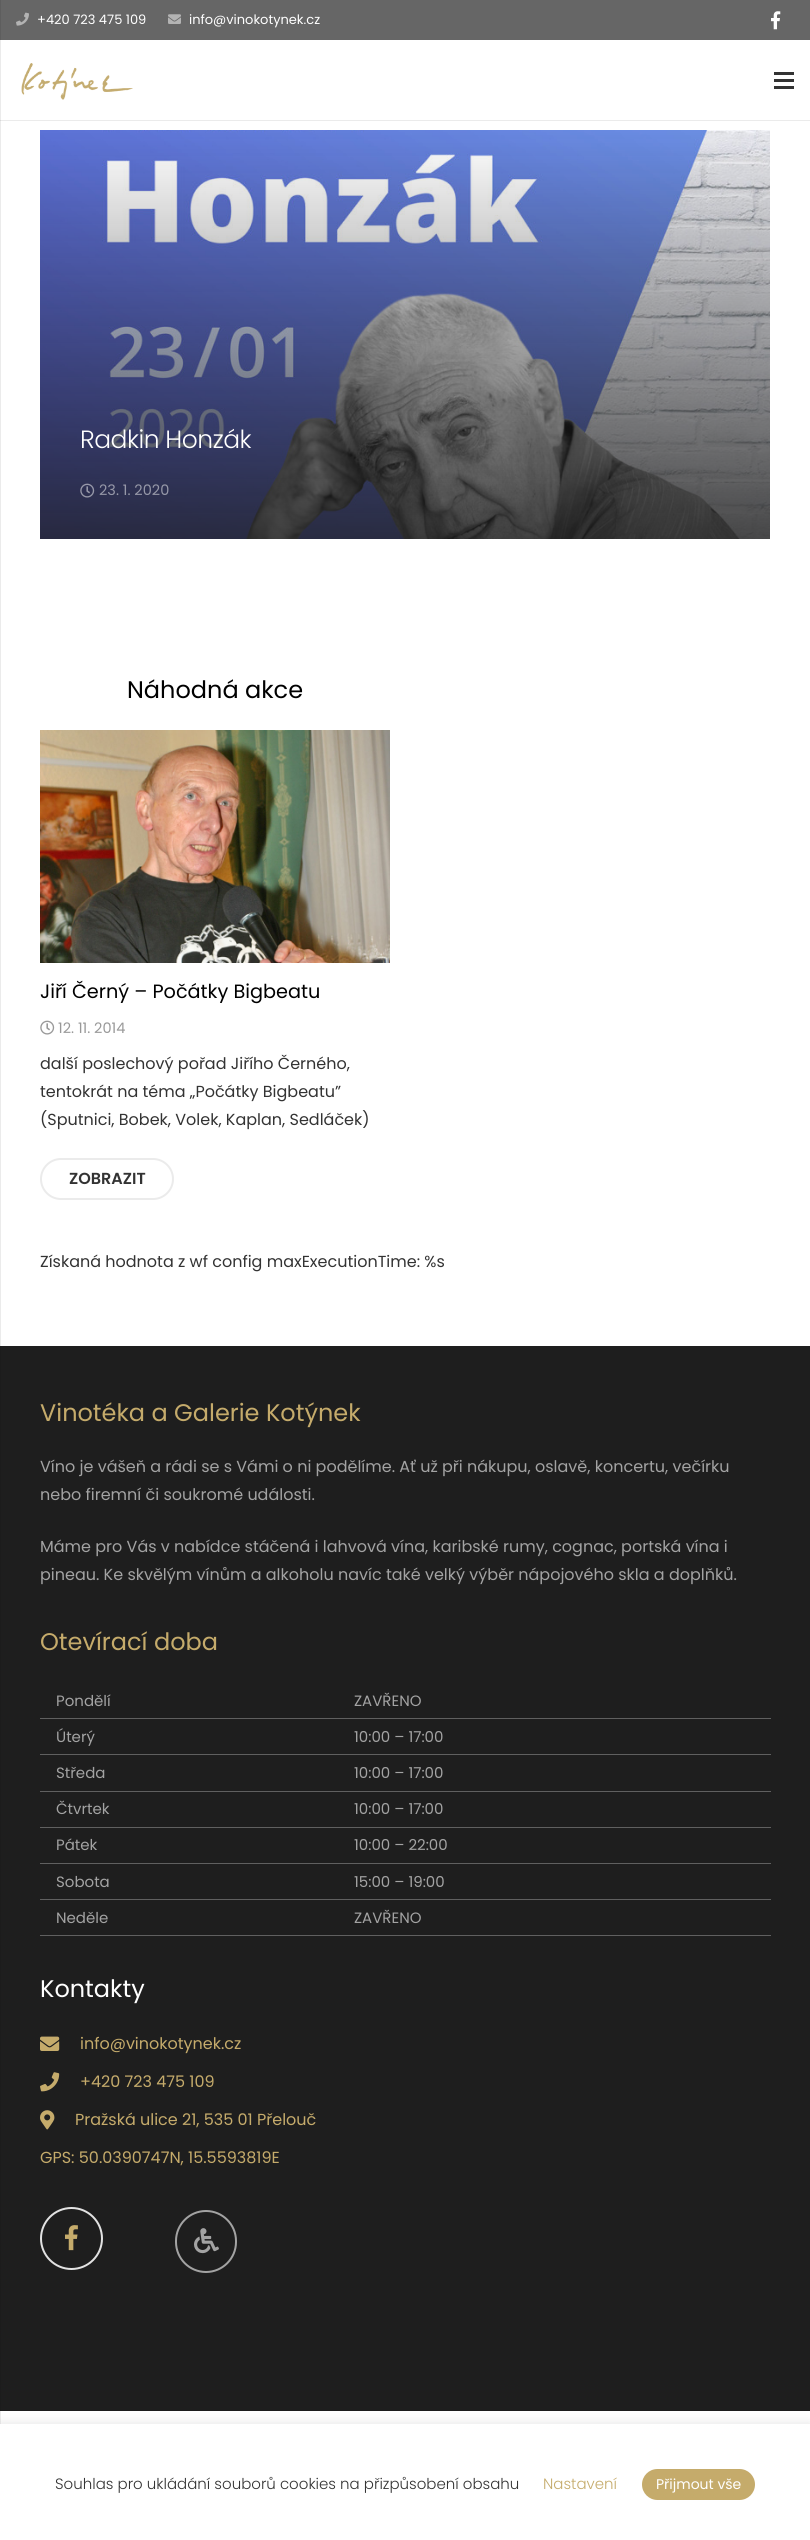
import math
import cairo

surface = cairo.ImageSurface(cairo.FORMAT_RGB24, 810, 2540)
cr = cairo.Context(surface)
options = cairo.FontOptions()
options.set_hint_metrics(cairo.HINT_METRICS_OFF)
options.set_hint_style(cairo.HINT_STYLE_NONE)
cr.set_font_options(options)
cr.set_miter_limit(4)


def rgb(code):
    cr.set_source_rgb(*(v / 255 for v in bytes.fromhex(code[-6:])))


def tracked(x, y, s, letter, word):
    cr.move_to(x, y)
    for ch in s:
        cr.show_text(ch)
        cr.rel_move_to(letter + word * (ch == ' '), 0)


def rrect(x, y, w, h, r):
    cr.new_sub_path()
    for i, (u, v) in enumerate([(x + w - r, y + h - r), (x + r, y + h - r), (x + r, y + r), (x + w - r, y + r)]):
        cr.arc(u, v, r, i * math.pi / 2, (i + 1) * math.pi / 2)
    cr.close_path()


def soft_shadow(x, y, w, h, r, blur, alpha):
    cr.push_group_with_content(cairo.CONTENT_ALPHA)
    cr.set_operator(cairo.OPERATOR_SOURCE)
    for i in range(15, -16, -2):
        e = blur * i / 6
        if min(w, h) + 2 * e > 0:
            cr.set_source_rgba(0, 0, 0, alpha * math.erfc((i - 1) / 8.5) / 2)
            rrect(x - e, y - e, w + 2 * e, h + 2 * e, max(0, min(r + e + blur * .6, min(w, h) / 2 + e)))
            cr.fill()
    cr.mask(cr.pop_group())


def image(path, x, y, w, h):
    cr.save()
    cr.set_source_surface(cairo.ImageSurface.create_from_png(path), x, y)
    cr.rectangle(x, y, w, h)
    cr.fill()
    cr.restore()


rgb("#ffffff")
cr.paint()
for x, y, w, h, color in [
    (0, 40, 1, 1306, "#ebebeb"),
    (1, 0, 809, 40, "#666666"),
    (0, 0, 1, 40, "#5e5e5e"),
]:
    rgb(color)
    cr.rectangle(x, y, w, h)
    cr.fill()
image("img/1.png", 16, 12, 13, 14)
image("img/2.png", 168, 14, 13, 10)
image("img/3.png", 771, 11, 10, 19)
rgb("#ebebeb")
cr.rectangle(0, 120, 810, 1)
cr.fill()
rgb("#d8d8d8")
cr.rectangle(0, 120, 1, 1)
cr.fill()
image("img/4.png", 21, 63, 112, 37)
for x, y, w, h, color in [
    (774, 79, 20, 3, "#333333"),
    (774, 72, 20, 3, "#333333"),
    (774, 86, 20, 3, "#333333"),
]:
    rgb(color)
    cr.rectangle(x, y, w, h)
    cr.fill()
image("img/5.png", 40, 130, 730, 409)
image("img/6.png", 80, 483, 15, 15)
image("img/7.png", 40, 730, 350, 233)
image("img/8.png", 40, 1020, 15, 15)
rrect(41, 1159, 132, 40, 20)
rgb("#ebebeb")
cr.stroke()
for x, y, w, h, color in [
    (0, 2411, 1, 13, "#ebebeb"),
    (1, 1346, 809, 1065, "#1e1e1e"),
    (0, 1346, 1, 1065, "#1c1c1c"),
    (40, 1718, 731, 1, "#606060"),
    (40, 1754, 731, 1, "#606060"),
    (40, 1791, 731, 1, "#606060"),
    (40, 1827, 731, 1, "#606060"),
    (40, 1863, 731, 1, "#606060"),
    (40, 1899, 731, 1, "#606060"),
    (40, 1935, 731, 1, "#606060"),
]:
    rgb(color)
    cr.rectangle(x, y, w, h)
    cr.fill()
image("img/9.png", 40, 2036, 20, 15)
image("img/10.png", 40, 2072, 20, 20)
image("img/11.png", 40, 2110, 15, 20)
cr.arc(71.5, 2238.5, 30.5, 0, 2 * math.pi)
rgb("#e2e2e2")
cr.stroke()
image("img/12.png", 65, 2225, 13, 26)
rrect(176, 2211, 60, 61, 30)
rgb("#a3a3a3")
cr.stroke()
image("img/13.png", 194, 2228, 25, 26)
rgb("#acabab")
soft_shadow(0, 2423, 810, 116, 0, 5, 0.3)
rgb("#ffffff")
cr.rectangle(0, 2424, 810, 116)
cr.fill()
rgb("#c5ab6b")
rrect(642, 2469, 113, 31, 15.5)
cr.fill()
cr.select_font_face("Poppins")
cr.set_font_size(13)
rgb("#ffffff")
cr.move_to(37, 24)
cr.show_text("+420 723 475 109")
cr.move_to(189, 24)
cr.show_text("info@vinokotynek.cz")
cr.select_font_face("Poppins Light")
cr.set_font_size(25)
tracked(80, 448, "Radkin Honzák", -0.5, 0)
cr.select_font_face("Poppins")
cr.set_font_size(14.5)
rgb("#9698a8")
cr.move_to(99, 495)
cr.show_text("23. 1. 2020")
cr.set_font_size(24)
rgb("#000000")
cr.move_to(127, 698)
cr.show_text("Náhodná akce")
cr.set_font_size(19.25)
cr.move_to(40, 998)
cr.show_text("Jiří Černý – Počátky Bigbeatu")
cr.set_font_size(14.5)
rgb("#999999")
cr.move_to(58, 1033)
cr.show_text("12. 11. 2014")
cr.set_font_size(16)
rgb("#333333")
for x, y, s in [
    (40, 1069, "další poslechový pořad Jiřího Černého,"),
    (40, 1097, "tentokrát na téma „Počátky Bigbeatu”"),
    (40, 1125, "(Sputnici, Bobek, Volek, Kaplan, Sedláček)"),
]:
    cr.move_to(x, y)
    cr.show_text(s)
cr.select_font_face("Poppins SemiBold")
cr.move_to(69, 1184)
cr.show_text("ZOBRAZIT")
cr.select_font_face("Poppins")
cr.move_to(40, 1267)
cr.show_text("Získaná hodnota z wf config maxExecutionTime: %s")
cr.set_font_size(24)
rgb("#c5ab6b")
cr.move_to(40, 1421)
cr.show_text("Vinotéka a Galerie Kotýnek")
cr.set_font_size(16)
rgb("#a3a3a3")
for x, y, s in [
    (40, 1472, "Víno je vášeň a rádi se s Vámi o ni podělíme. Ať už při nákupu, oslavě, koncertu, večírku"),
    (40, 1500, "nebo firemní či soukromé události."),
    (40, 1552, "Máme pro Vás v nabídce stáčená i lahvová vína, karibské rumy, cognac, portská vína i"),
    (40, 1580, "pineau. Ke skvělým vínům a alkoholu navíc také velký výběr nápojového skla a doplňků."),
]:
    cr.move_to(x, y)
    cr.show_text(s)
cr.set_font_size(24)
rgb("#c5ab6b")
cr.move_to(40, 1650)
cr.show_text("Otevírací doba")
cr.set_font_size(15)
rgb("#a3a3a3")
for x, y, s in [
    (56, 1706, "Pondělí"),
    (354, 1706, "ZAVŘENO"),
    (56, 1742, "Úterý"),
    (354, 1742, "10:00 – 17:00"),
    (56, 1778, "Středa"),
    (354, 1778, "10:00 – 17:00"),
    (56, 1814, "Čtvrtek"),
    (354, 1814, "10:00 – 17:00"),
    (56, 1850, "Pátek"),
    (354, 1850, "10:00 – 22:00"),
    (56, 1887, "Sobota"),
    (354, 1887, "15:00 – 19:00"),
    (56, 1923, "Neděle"),
    (354, 1923, "ZAVŘENO"),
]:
    cr.move_to(x, y)
    cr.show_text(s)
cr.set_font_size(24)
rgb("#ffffff")
cr.move_to(40, 1997)
cr.show_text("Kontakty")
cr.set_font_size(16)
rgb("#c5ab6b")
for x, y, s in [
    (80, 2049, "info@vinokotynek.cz"),
    (80, 2087, "+420 723 475 109"),
    (75, 2125, "Pražská ulice 21, 535 01 Přelouč"),
    (40, 2163, "GPS: 50.0390747N, 15.5593819E"),
]:
    cr.move_to(x, y)
    cr.show_text(s)
cr.select_font_face("Poppins Light")
cr.set_font_size(15)
rgb("#333333")
cr.move_to(55, 2489)
cr.show_text("Souhlas pro ukládání souborů cookies na přizpůsobení obsahu")
rgb("#c5ab6b")
cr.move_to(543, 2489)
cr.show_text("Nastavení")
cr.select_font_face("Poppins")
cr.set_font_size(14)
rgb("#ffffff")
cr.move_to(656, 2489)
cr.show_text("Přijmout vše")
surface.write_to_png("page.png")
